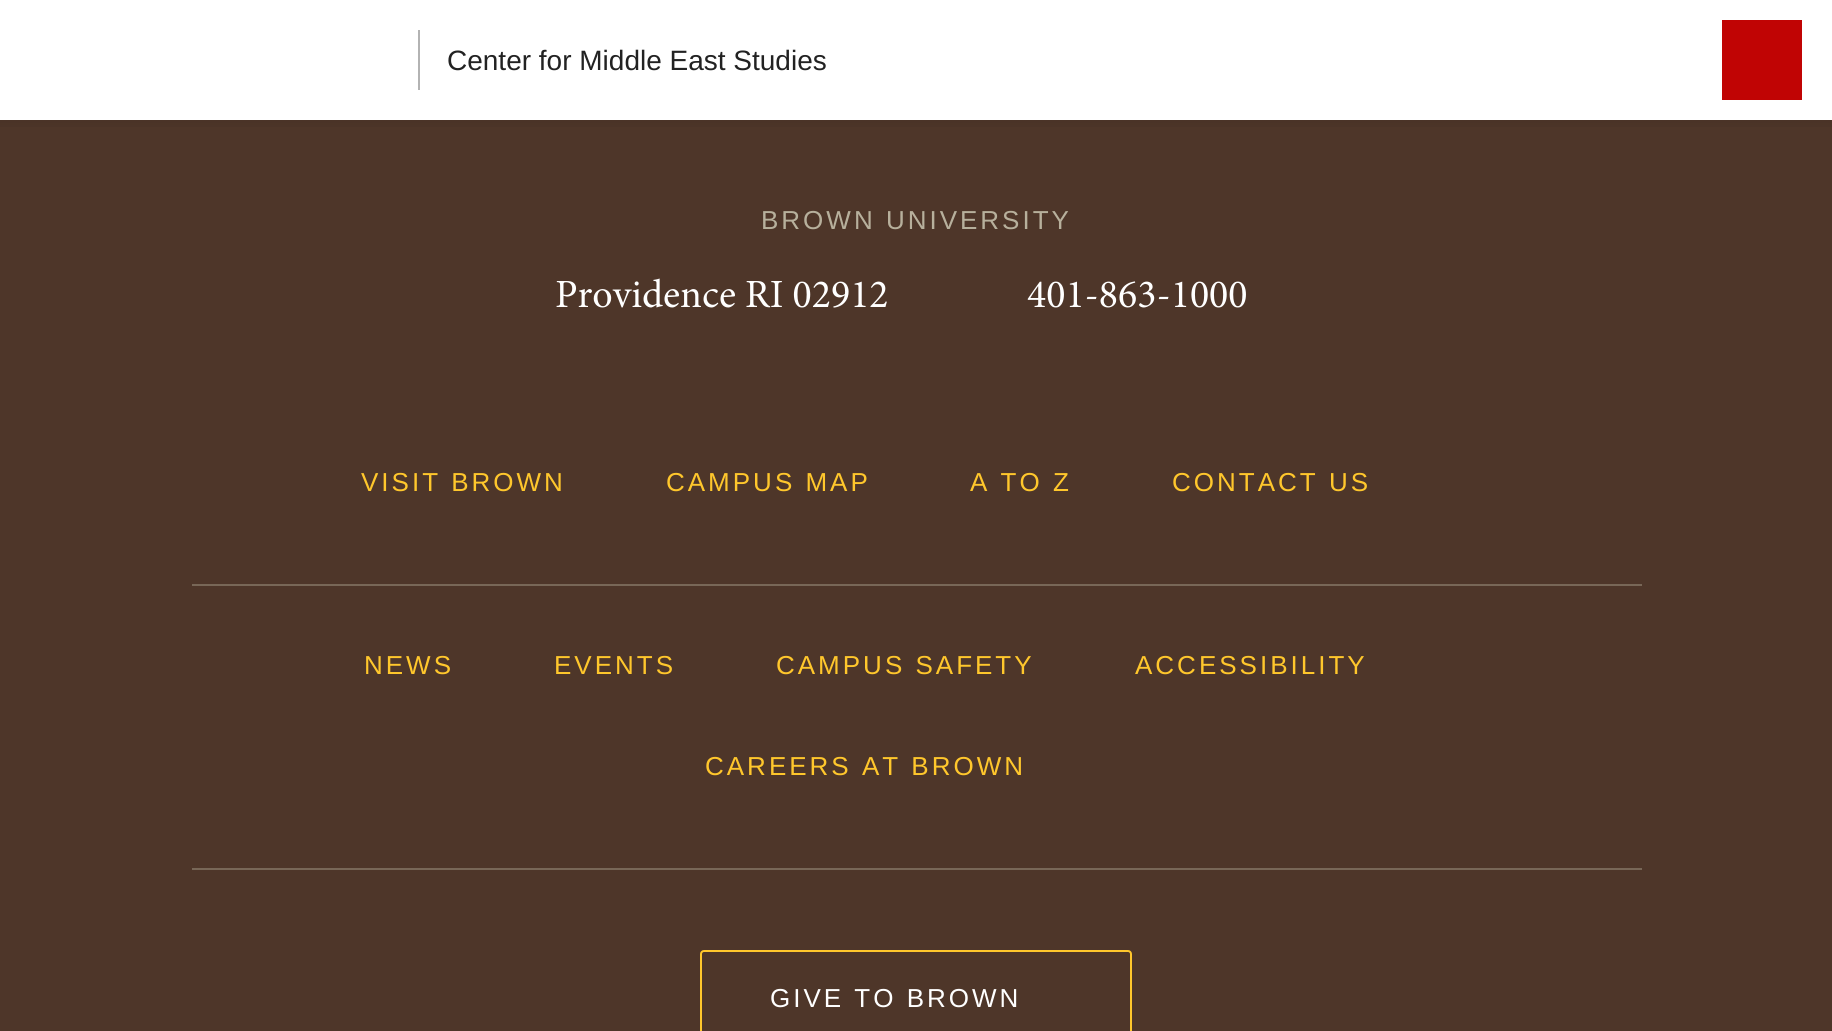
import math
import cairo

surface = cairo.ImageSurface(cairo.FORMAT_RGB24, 1832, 1031)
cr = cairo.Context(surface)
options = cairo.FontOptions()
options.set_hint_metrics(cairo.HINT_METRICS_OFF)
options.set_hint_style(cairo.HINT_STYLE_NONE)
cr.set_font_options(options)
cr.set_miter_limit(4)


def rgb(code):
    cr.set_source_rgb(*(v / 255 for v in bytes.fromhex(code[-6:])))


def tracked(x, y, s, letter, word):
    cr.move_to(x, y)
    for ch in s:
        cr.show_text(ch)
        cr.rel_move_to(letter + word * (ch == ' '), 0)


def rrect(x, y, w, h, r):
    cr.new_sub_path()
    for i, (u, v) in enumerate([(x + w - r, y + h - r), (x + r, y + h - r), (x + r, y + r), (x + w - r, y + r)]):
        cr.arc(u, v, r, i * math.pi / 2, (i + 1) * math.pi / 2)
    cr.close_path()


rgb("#4e3629")
cr.paint()
for x, y, w, h, color in [
    (0, 0, 1832, 120, "#ffffff"),
    (418, 30, 2, 60, "#b3b3b3"),
    (1722, 20, 80, 80, "#c00404"),
]:
    rgb(color)
    cr.rectangle(x, y, w, h)
    cr.fill()
gradient = cairo.LinearGradient(916, 120, 916, 140)
gradient.add_color_stop_rgba(0, 0.29, 0.2, 0.153, 1)
gradient.add_color_stop_rgba(1, 0.306, 0.212, 0.161, 1)
cr.set_source(gradient)
cr.rectangle(0, 120, 1832, 7)
cr.fill()
rgb("#786757")
cr.rectangle(192, 584, 1450, 2)
cr.fill()
cr.rectangle(192, 868, 1450, 2)
cr.fill()
rrect(701, 951, 430, 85, 3)
rgb("#ffc72c")
cr.stroke()
cr.select_font_face("Liberation Sans")
cr.set_font_size(28)
rgb("#222222")
cr.move_to(447, 70)
cr.show_text("Center for Middle East Studies")
cr.set_font_size(26)
rgb("#b7b09c")
tracked(761, 229, "BROWN UNIVERSITY", 3, 0)
cr.select_font_face("Minion")
cr.set_font_size(40)
rgb("#ffffff")
cr.move_to(555, 307)
cr.show_text("Providence RI 02912")
cr.move_to(1027, 307)
cr.show_text("401-863-1000")
cr.select_font_face("Liberation Sans")
cr.set_font_size(26)
rgb("#ffc72c")
for x, y, s in [
    (361, 491, "VISIT BROWN"),
    (666, 491, "CAMPUS MAP"),
    (970, 491, "A TO Z"),
    (1172, 491, "CONTACT US"),
    (364, 674, "NEWS"),
    (554, 674, "EVENTS"),
    (776, 674, "CAMPUS SAFETY"),
    (1135, 674, "ACCESSIBILITY"),
    (705, 775, "CAREERS AT BROWN"),
]:
    tracked(x, y, s, 3, 0)
rgb("#ffffff")
tracked(770, 1007, "GIVE TO BROWN", 3, 0)
surface.write_to_png("page.png")
